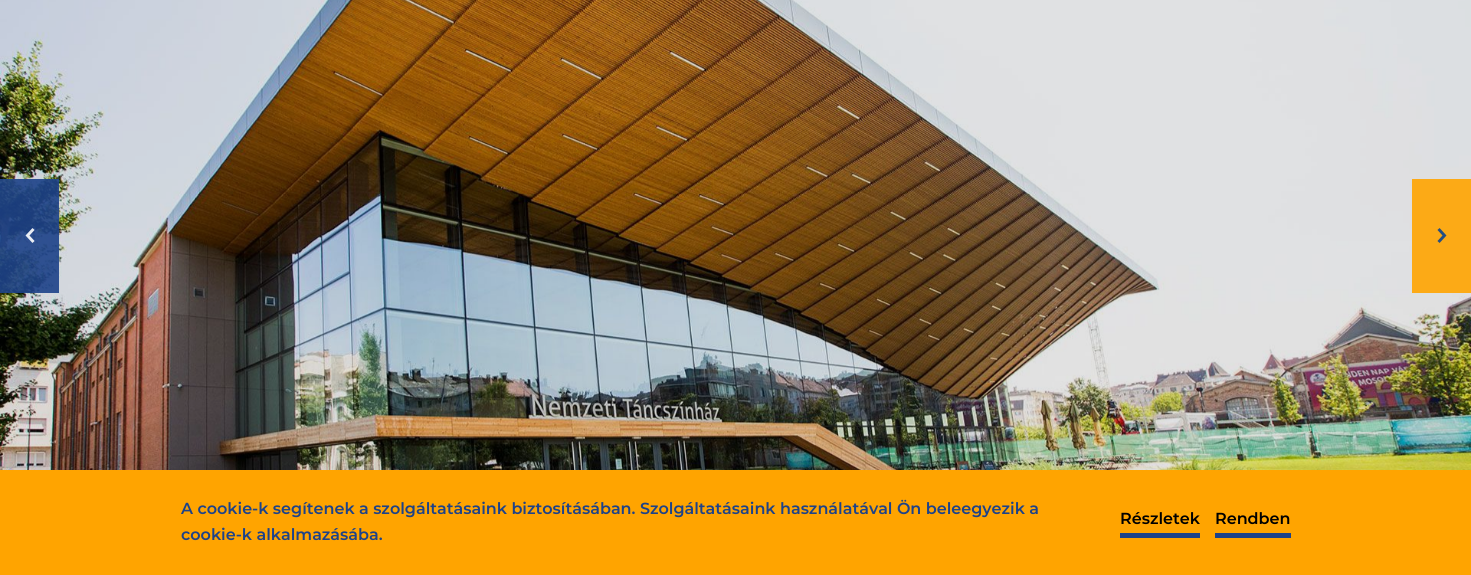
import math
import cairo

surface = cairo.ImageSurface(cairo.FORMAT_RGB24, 1471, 575)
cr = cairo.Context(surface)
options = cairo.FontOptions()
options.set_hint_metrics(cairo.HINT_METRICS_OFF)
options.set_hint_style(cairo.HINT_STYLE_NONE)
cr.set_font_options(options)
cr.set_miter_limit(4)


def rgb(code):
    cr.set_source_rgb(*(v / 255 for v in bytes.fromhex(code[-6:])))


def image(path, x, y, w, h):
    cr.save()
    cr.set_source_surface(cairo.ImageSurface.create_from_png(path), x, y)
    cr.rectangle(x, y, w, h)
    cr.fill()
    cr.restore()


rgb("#ffffff")
cr.paint()
image("img/1.png", 0, 0, 1471, 470)
cr.set_source_rgba(0.114, 0.259, 0.537, 0.9)
cr.rectangle(0, 179, 59, 114)
cr.fill()
cr.new_path()
cr.move_to(33.5, 229)
cr.line_to(27.5, 235.5)
cr.line_to(33.5, 242)
cr.set_source_rgba(1, 1, 1, 0.9)
cr.set_line_width(2.9)
cr.stroke()
cr.set_source_rgba(1, 0.643, 0, 0.9)
cr.rectangle(1412, 179, 59, 114)
cr.fill()
cr.new_path()
cr.move_to(1438.5, 229)
cr.line_to(1444.5, 235.5)
cr.line_to(1438.5, 242)
rgb("#254e81")
cr.stroke()
for x, y, w, h, color in [
    (0, 470, 1471, 105, "#ffa400"),
    (1120, 533, 80, 5, "#1d4289"),
    (1215, 533, 76, 5, "#1d4289"),
]:
    rgb(color)
    cr.rectangle(x, y, w, h)
    cr.fill()
cr.select_font_face("Montserrat SemiBold")
cr.set_font_size(16)
cr.move_to(181, 514)
cr.show_text("A cookie-k segítenek a szolgáltatásaink biztosításában. Szolgáltatásaink használatával Ön beleegyezik a")
cr.move_to(181, 540)
cr.show_text("cookie-k alkalmazásába.")
rgb("#000000")
cr.move_to(1120, 524)
cr.show_text("Részletek")
cr.move_to(1215, 524)
cr.show_text("Rendben")
surface.write_to_png("page.png")
